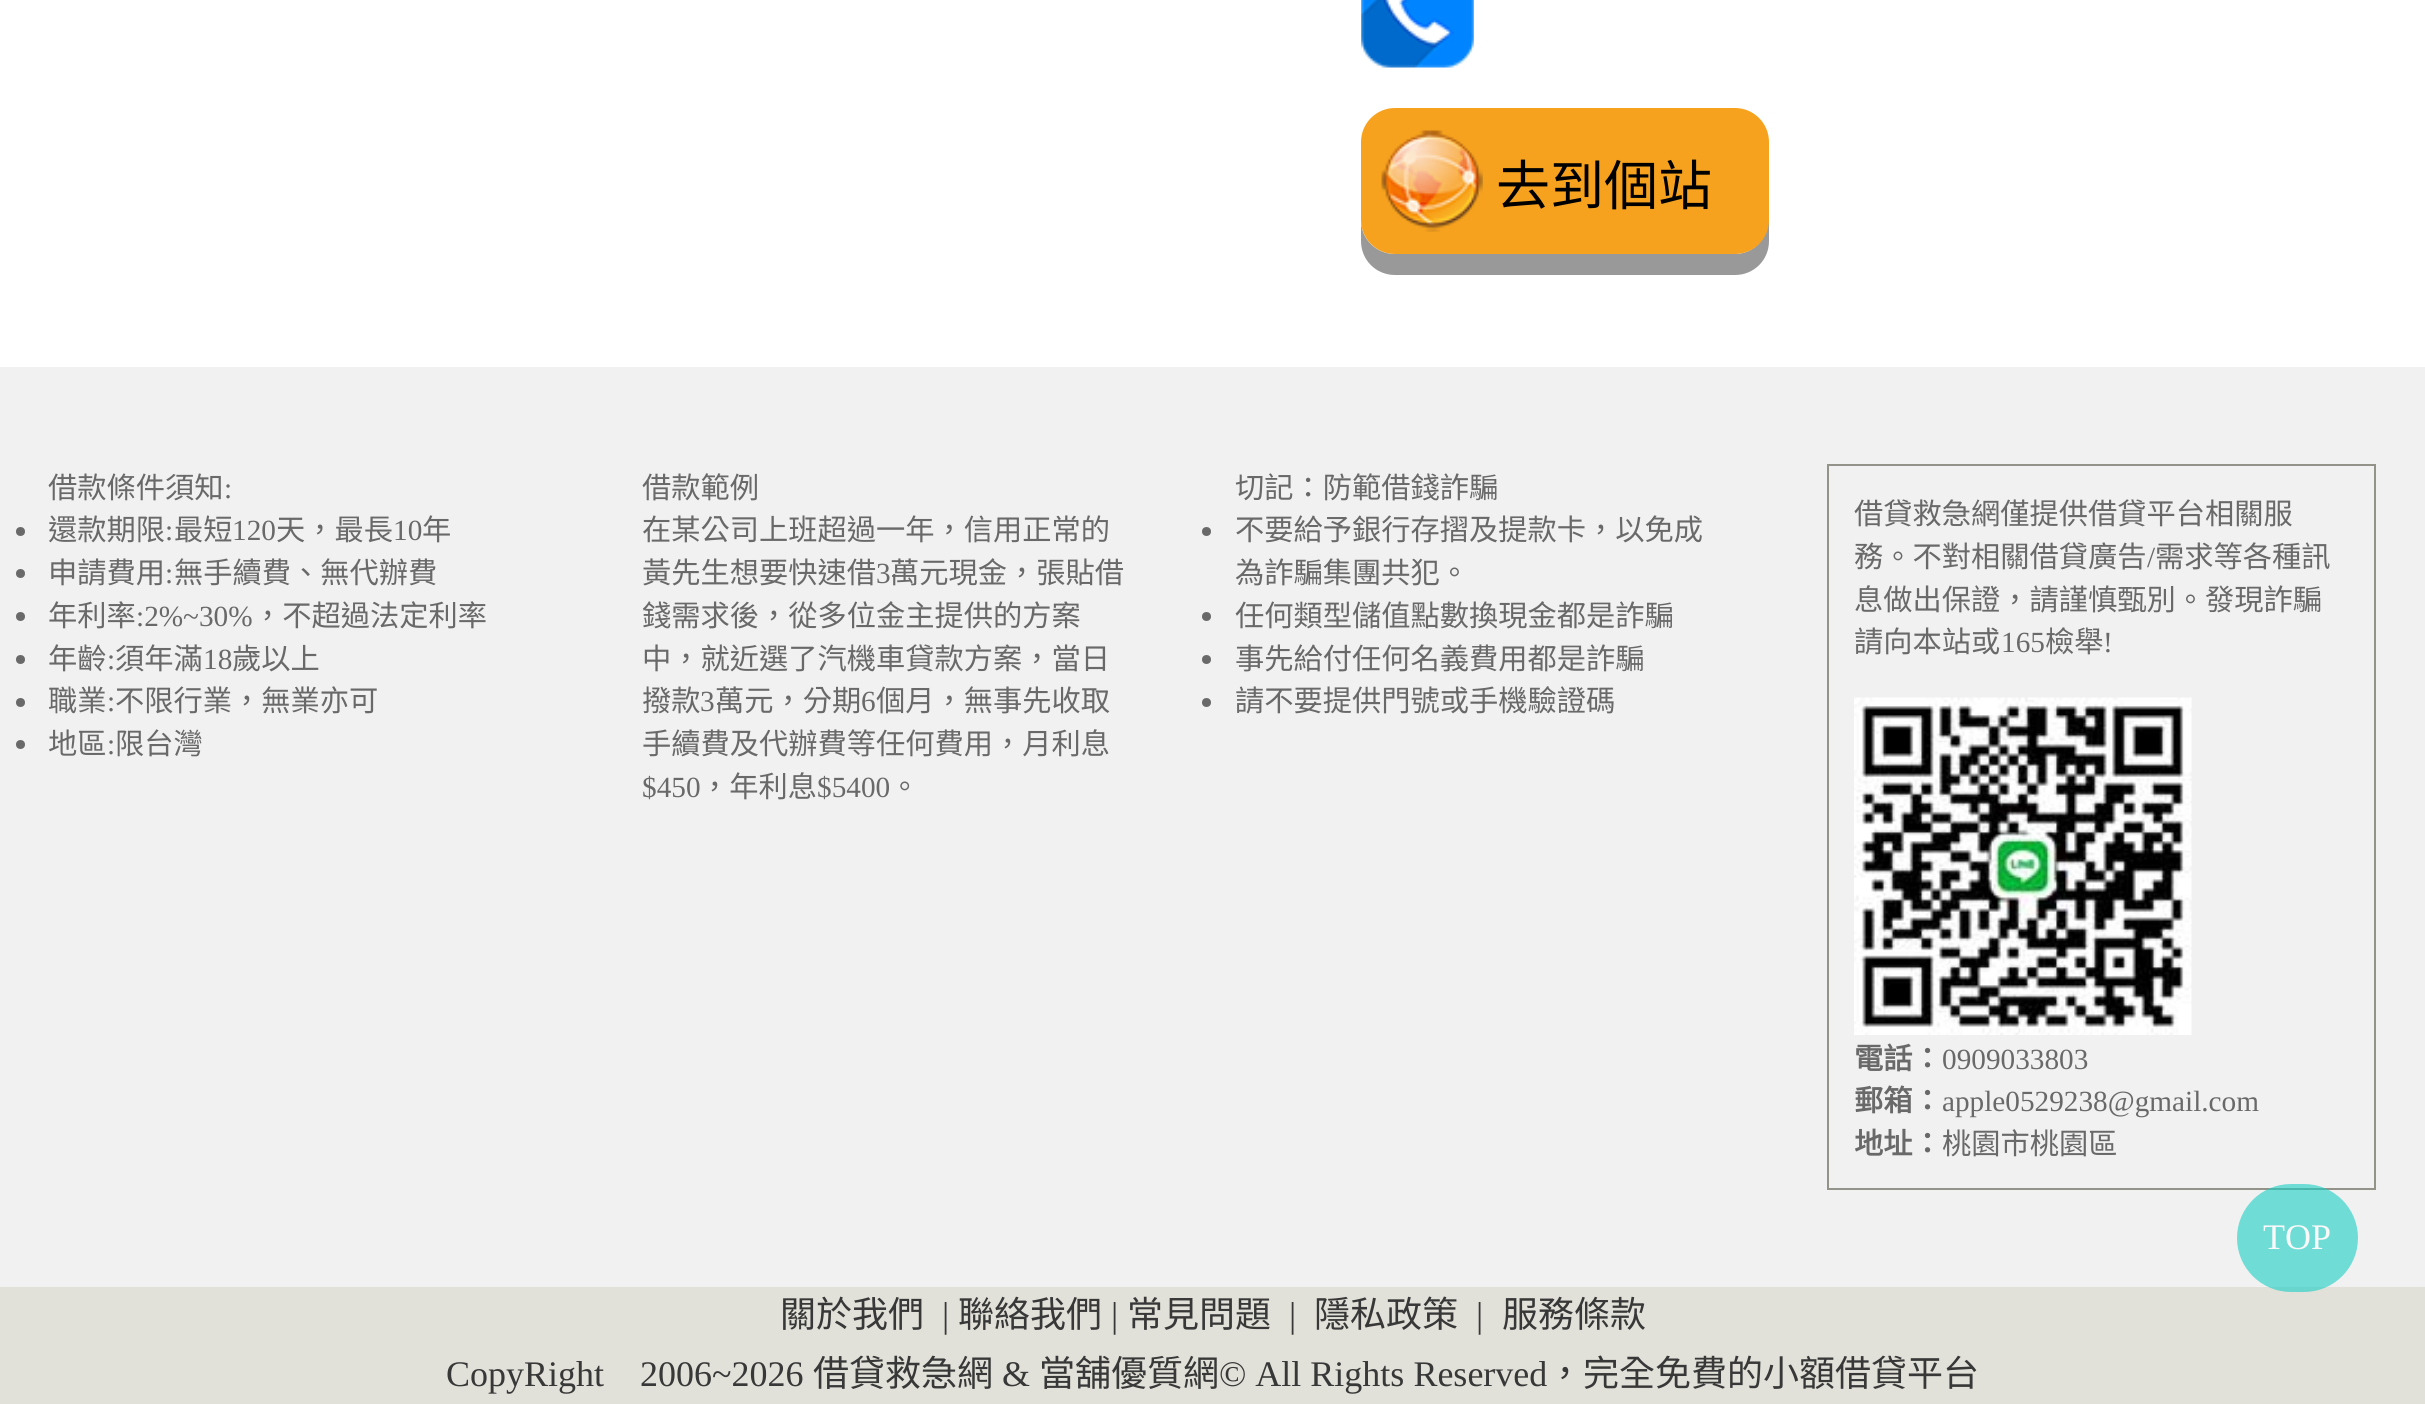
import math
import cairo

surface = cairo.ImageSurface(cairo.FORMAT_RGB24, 2425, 1404)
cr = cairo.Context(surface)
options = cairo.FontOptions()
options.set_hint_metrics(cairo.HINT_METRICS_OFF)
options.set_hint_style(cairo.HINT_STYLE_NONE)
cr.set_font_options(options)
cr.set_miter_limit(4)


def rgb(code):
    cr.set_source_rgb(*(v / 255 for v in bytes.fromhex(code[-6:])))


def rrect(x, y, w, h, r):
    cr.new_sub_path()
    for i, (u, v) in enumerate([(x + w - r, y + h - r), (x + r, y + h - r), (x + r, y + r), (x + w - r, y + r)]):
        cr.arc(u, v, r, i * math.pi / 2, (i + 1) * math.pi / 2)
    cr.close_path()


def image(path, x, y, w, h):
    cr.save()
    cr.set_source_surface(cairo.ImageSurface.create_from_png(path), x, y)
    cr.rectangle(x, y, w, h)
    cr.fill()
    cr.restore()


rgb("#ffffff")
cr.paint()
image("img/1.png", 1361, 0, 113, 68)
rgb("#999999")
cr.new_path()
cr.move_to(1361, 158)
cr.line_to(1361, 241)
cr.curve_to(1361, 260, 1376, 275, 1395, 275)
cr.line_to(1735, 275)
cr.curve_to(1754, 275, 1769, 260, 1769, 241)
cr.line_to(1769, 162)
cr.line_to(1768, 156)
cr.line_to(1768, 220)
cr.curve_to(1768, 239, 1753, 254, 1735, 254)
cr.line_to(1395, 254)
cr.curve_to(1376, 254, 1361, 239, 1361, 220)
cr.close_path()
cr.fill()
rgb("#f7a21e")
rrect(1361, 108, 408, 146, 34)
cr.fill()
image("img/2.png", 1381, 130, 102, 102)
rgb("#f1f1f1")
cr.rectangle(0, 367, 2425, 920)
cr.fill()
rgb("#696969")
cr.arc(20.5, 531.5, 4.5, 0, 2 * math.pi)
cr.fill()
cr.arc(20.5, 573.5, 4.5, 0, 2 * math.pi)
cr.fill()
cr.arc(20.5, 616.5, 4.5, 0, 2 * math.pi)
cr.fill()
cr.arc(20.5, 659.5, 4.5, 0, 2 * math.pi)
cr.fill()
cr.arc(20.5, 702.5, 4.5, 0, 2 * math.pi)
cr.fill()
cr.arc(20.5, 744.5, 4.5, 0, 2 * math.pi)
cr.fill()
cr.arc(1206.5, 531.5, 4.5, 0, 2 * math.pi)
cr.fill()
cr.arc(1206.5, 616.5, 4.5, 0, 2 * math.pi)
cr.fill()
cr.arc(1206.5, 659.5, 4.5, 0, 2 * math.pi)
cr.fill()
cr.arc(1206.5, 702.5, 4.5, 0, 2 * math.pi)
cr.fill()
cr.rectangle(1828, 465, 547, 724)
rgb("#949389")
cr.stroke()
image("img/3.png", 1854, 697, 338, 338)
rgb("#e2e1d9")
cr.rectangle(0, 1287, 2425, 117)
cr.fill()
cr.set_source_rgba(0.098, 0.808, 0.773, 0.6)
rrect(2237, 1184, 121, 108, 54)
cr.fill()
cr.select_font_face("Noto Sans CJK TC")
cr.set_font_size(54)
rgb("#000000")
cr.move_to(1496, 205)
cr.show_text("去到個站")
cr.set_font_size(29.25)
rgb("#696969")
cr.move_to(48, 498)
cr.show_text("借款條件須知")
cr.select_font_face("Liberation Serif")
cr.move_to(224, 498)
cr.show_text(":")
cr.select_font_face("Noto Sans CJK TC")
cr.move_to(48, 540)
cr.show_text("還款期限")
cr.select_font_face("Liberation Serif")
cr.move_to(165, 540)
cr.show_text(":")
cr.select_font_face("Noto Sans CJK TC")
cr.move_to(174, 540)
cr.show_text("最短")
cr.select_font_face("Liberation Serif")
cr.move_to(232, 540)
cr.show_text("120")
cr.select_font_face("Noto Sans CJK TC")
cr.move_to(276, 540)
cr.show_text("天，最長")
cr.select_font_face("Liberation Serif")
cr.move_to(393, 540)
cr.show_text("10")
cr.select_font_face("Noto Sans CJK TC")
cr.move_to(422, 540)
cr.show_text("年")
cr.move_to(48, 583)
cr.show_text("申請費用")
cr.select_font_face("Liberation Serif")
cr.move_to(165, 583)
cr.show_text(":")
cr.select_font_face("Noto Sans CJK TC")
cr.move_to(174, 583)
cr.show_text("無手續費、無代辦費")
cr.move_to(48, 626)
cr.show_text("年利率")
cr.select_font_face("Liberation Serif")
cr.move_to(136, 626)
cr.show_text(":2%~30%")
cr.select_font_face("Noto Sans CJK TC")
cr.move_to(253, 626)
cr.show_text("，不超過法定利率")
cr.move_to(48, 669)
cr.show_text("年齡")
cr.select_font_face("Liberation Serif")
cr.move_to(107, 669)
cr.show_text(":")
cr.select_font_face("Noto Sans CJK TC")
cr.move_to(115, 669)
cr.show_text("須年滿")
cr.select_font_face("Liberation Serif")
cr.move_to(203, 669)
cr.show_text("18")
cr.select_font_face("Noto Sans CJK TC")
cr.move_to(232, 669)
cr.show_text("歲以上")
cr.move_to(48, 711)
cr.show_text("職業")
cr.select_font_face("Liberation Serif")
cr.move_to(107, 711)
cr.show_text(":")
cr.select_font_face("Noto Sans CJK TC")
cr.move_to(115, 711)
cr.show_text("不限行業，無業亦可")
cr.move_to(48, 754)
cr.show_text("地區")
cr.select_font_face("Liberation Serif")
cr.move_to(107, 754)
cr.show_text(":")
cr.select_font_face("Noto Sans CJK TC")
for x, y, s in [
    (115, 754, "限台灣"),
    (642, 498, "借款範例"),
    (642, 540, "在某公司上班超過一年，信用正常的"),
    (642, 583, "黃先生想要快速借"),
]:
    cr.move_to(x, y)
    cr.show_text(s)
cr.select_font_face("Liberation Serif")
cr.move_to(876, 583)
cr.show_text("3")
cr.select_font_face("Noto Sans CJK TC")
for x, y, s in [
    (890, 583, "萬元現金，張貼借"),
    (642, 626, "錢需求後，從多位金主提供的方案"),
    (642, 669, "中，就近選了汽機車貸款方案，當日"),
    (642, 711, "撥款"),
]:
    cr.move_to(x, y)
    cr.show_text(s)
cr.select_font_face("Liberation Serif")
cr.move_to(700, 711)
cr.show_text("3")
cr.select_font_face("Noto Sans CJK TC")
cr.move_to(715, 711)
cr.show_text("萬元，分期")
cr.select_font_face("Liberation Serif")
cr.move_to(861, 711)
cr.show_text("6")
cr.select_font_face("Noto Sans CJK TC")
cr.move_to(876, 711)
cr.show_text("個月，無事先收取")
cr.move_to(642, 754)
cr.show_text("手續費及代辦費等任何費用，月利息")
cr.select_font_face("Liberation Serif")
cr.move_to(642, 797)
cr.show_text("$450")
cr.select_font_face("Noto Sans CJK TC")
cr.move_to(700, 797)
cr.show_text("，年利息")
cr.select_font_face("Liberation Serif")
cr.move_to(817, 797)
cr.show_text("$5400")
cr.select_font_face("Noto Sans CJK TC")
for x, y, s in [
    (890, 797, "。"),
    (1235, 498, "切記：防範借錢詐騙"),
    (1235, 540, "不要給予銀行存摺及提款卡，以免成"),
    (1235, 583, "為詐騙集團共犯。"),
    (1235, 626, "任何類型儲值點數換現金都是詐騙"),
    (1235, 669, "事先給付任何名義費用都是詐騙"),
    (1235, 711, "請不要提供門號或手機驗證碼"),
    (1854, 524, "借貸救急網僅提供借貸平台相關服"),
    (1854, 567, "務。不對相關借貸廣告"),
]:
    cr.move_to(x, y)
    cr.show_text(s)
cr.select_font_face("Liberation Serif")
cr.move_to(2147, 567)
cr.show_text("/")
cr.select_font_face("Noto Sans CJK TC")
for x, y, s in [
    (2155, 567, "需求等各種訊"),
    (1854, 610, "息做出保證，請謹慎甄別。發現詐騙"),
    (1854, 652, "請向本站或"),
]:
    cr.move_to(x, y)
    cr.show_text(s)
cr.select_font_face("Liberation Serif")
cr.move_to(2001, 652)
cr.show_text("165")
cr.select_font_face("Noto Sans CJK TC")
cr.move_to(2045, 652)
cr.show_text("檢舉")
cr.select_font_face("Liberation Serif")
cr.move_to(2103, 652)
cr.show_text("!")
cr.select_font_face("Noto Sans CJK TC", cairo.FONT_SLANT_NORMAL, cairo.FONT_WEIGHT_BOLD)
cr.move_to(1854, 1069)
cr.show_text("電話：")
cr.select_font_face("Liberation Serif")
cr.move_to(1942, 1069)
cr.show_text("0909033803")
cr.select_font_face("Noto Sans CJK TC", cairo.FONT_SLANT_NORMAL, cairo.FONT_WEIGHT_BOLD)
cr.move_to(1854, 1111)
cr.show_text("郵箱：")
cr.select_font_face("Liberation Serif")
cr.move_to(1942, 1111)
cr.show_text("apple0529238@gmail.com")
cr.select_font_face("Noto Sans CJK TC", cairo.FONT_SLANT_NORMAL, cairo.FONT_WEIGHT_BOLD)
cr.move_to(1854, 1154)
cr.show_text("地址：")
cr.select_font_face("Noto Sans CJK TC")
cr.move_to(1942, 1154)
cr.show_text("桃園市桃園區")
cr.select_font_face("Liberation Serif")
cr.set_font_size(36)
rgb("#f9f9f9")
cr.move_to(2263, 1249)
cr.show_text("TOP")
cr.select_font_face("Noto Sans CJK TC")
rgb("#383838")
cr.move_to(780, 1327)
cr.show_text("關於我們")
cr.select_font_face("Liberation Serif")
cr.move_to(942, 1327)
cr.show_text("|")
cr.select_font_face("Noto Sans CJK TC")
cr.move_to(958, 1327)
cr.show_text("聯絡我們")
cr.select_font_face("Liberation Serif")
cr.move_to(1111, 1327)
cr.show_text("|")
cr.select_font_face("Noto Sans CJK TC")
cr.move_to(1127, 1327)
cr.show_text("常見問題")
cr.select_font_face("Liberation Serif")
cr.move_to(1289, 1327)
cr.show_text("|")
cr.select_font_face("Noto Sans CJK TC")
cr.move_to(1314, 1327)
cr.show_text("隱私政策")
cr.select_font_face("Liberation Serif")
cr.move_to(1476, 1327)
cr.show_text("|")
cr.select_font_face("Noto Sans CJK TC")
cr.move_to(1502, 1327)
cr.show_text("服務條款")
cr.select_font_face("Liberation Serif")
cr.move_to(446, 1386)
cr.show_text("CopyRight")
cr.move_to(640, 1386)
cr.show_text("2006~2026")
cr.select_font_face("Noto Sans CJK TC")
cr.move_to(813, 1386)
cr.show_text("借貸救急網")
cr.select_font_face("Liberation Serif")
cr.move_to(1002, 1386)
cr.show_text("&")
cr.select_font_face("Noto Sans CJK TC")
cr.move_to(1039, 1386)
cr.show_text("當舖優質網")
cr.select_font_face("Liberation Serif")
cr.move_to(1219, 1386)
cr.show_text("© All Rights Reserved")
cr.select_font_face("Noto Sans CJK TC")
cr.move_to(1547, 1386)
cr.show_text("，完全免費的小額借貸平台")
surface.write_to_png("page.png")
